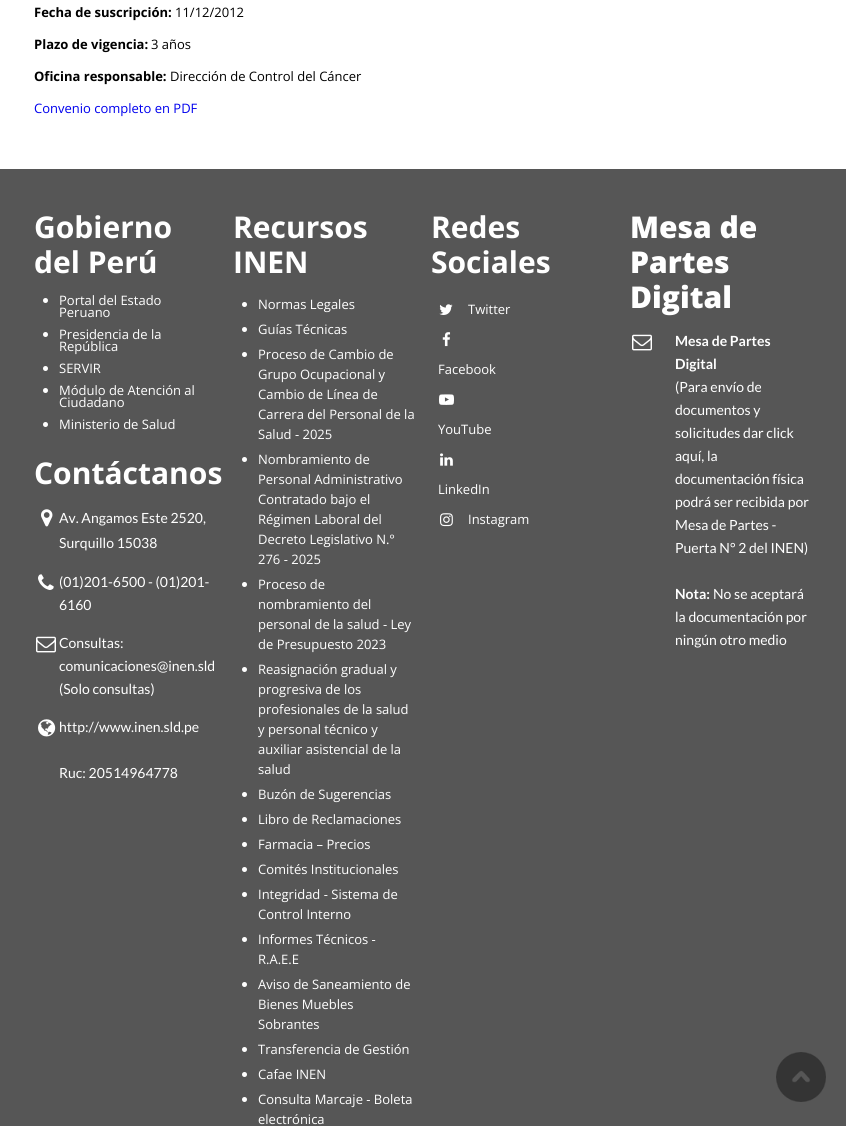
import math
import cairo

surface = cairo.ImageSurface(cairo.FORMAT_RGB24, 846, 1126)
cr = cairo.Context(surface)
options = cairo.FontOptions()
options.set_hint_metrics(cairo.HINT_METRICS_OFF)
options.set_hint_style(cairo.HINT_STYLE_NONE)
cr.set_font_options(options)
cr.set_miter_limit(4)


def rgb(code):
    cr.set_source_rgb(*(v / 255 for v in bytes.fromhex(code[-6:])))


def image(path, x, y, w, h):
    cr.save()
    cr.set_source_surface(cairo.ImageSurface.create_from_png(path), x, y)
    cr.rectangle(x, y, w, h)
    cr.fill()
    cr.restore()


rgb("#ffffff")
cr.paint()
rgb("#565656")
cr.rectangle(0, 169, 846, 957)
cr.fill()
rgb("#ffffff")
cr.arc(45.5, 300.5, 2.5, 0, 2 * math.pi)
cr.fill()
cr.arc(45.5, 334.5, 2.5, 0, 2 * math.pi)
cr.fill()
cr.arc(45.5, 368.5, 2.5, 0, 2 * math.pi)
cr.fill()
cr.arc(45.5, 390.5, 2.5, 0, 2 * math.pi)
cr.fill()
cr.arc(45.5, 424.5, 2.5, 0, 2 * math.pi)
cr.fill()
image("img/1.png", 41, 509, 12, 18)
image("img/2.png", 38, 574, 16, 16)
image("img/3.png", 36, 636, 20, 17)
image("img/4.png", 38, 719, 18, 18)
cr.arc(244.5, 304.5, 2.5, 0, 2 * math.pi)
cr.fill()
cr.arc(244.5, 329.5, 2.5, 0, 2 * math.pi)
cr.fill()
cr.arc(244.5, 354.5, 2.5, 0, 2 * math.pi)
cr.fill()
cr.arc(244.5, 459.5, 2.5, 0, 2 * math.pi)
cr.fill()
cr.arc(244.5, 584.5, 2.5, 0, 2 * math.pi)
cr.fill()
cr.arc(244.5, 669.5, 2.5, 0, 2 * math.pi)
cr.fill()
cr.arc(244.5, 794.5, 2.5, 0, 2 * math.pi)
cr.fill()
cr.arc(244.5, 819.5, 2.5, 0, 2 * math.pi)
cr.fill()
cr.arc(244.5, 844.5, 2.5, 0, 2 * math.pi)
cr.fill()
cr.arc(244.5, 869.5, 2.5, 0, 2 * math.pi)
cr.fill()
cr.arc(244.5, 894.5, 2.5, 0, 2 * math.pi)
cr.fill()
cr.arc(244.5, 939.5, 2.5, 0, 2 * math.pi)
cr.fill()
cr.arc(244.5, 984.5, 2.5, 0, 2 * math.pi)
cr.fill()
cr.arc(244.5, 1049.5, 2.5, 0, 2 * math.pi)
cr.fill()
cr.arc(244.5, 1074.5, 2.5, 0, 2 * math.pi)
cr.fill()
cr.arc(244.5, 1099.5, 2.5, 0, 2 * math.pi)
cr.fill()
image("img/5.png", 439, 304, 14, 11)
image("img/6.png", 442, 332, 9, 15)
image("img/7.png", 439, 394, 15, 11)
image("img/8.png", 440, 453, 13, 13)
image("img/9.png", 440, 513, 13, 14)
image("img/3.png", 632, 334, 20, 17)
image("img/10.png", 776, 1052, 50, 50)
cr.select_font_face("Open Sans", cairo.FONT_SLANT_NORMAL, cairo.FONT_WEIGHT_BOLD)
cr.set_font_size(13)
rgb("#000000")
cr.move_to(34, 17)
cr.show_text("Fecha de suscripción:")
cr.select_font_face("Open Sans")
cr.move_to(175, 17)
cr.show_text("11/12/2012")
cr.select_font_face("Open Sans", cairo.FONT_SLANT_NORMAL, cairo.FONT_WEIGHT_BOLD)
cr.move_to(34, 49)
cr.show_text("Plazo de vigencia:")
cr.select_font_face("Open Sans")
cr.move_to(151, 49)
cr.show_text("3 años")
cr.select_font_face("Open Sans", cairo.FONT_SLANT_NORMAL, cairo.FONT_WEIGHT_BOLD)
cr.move_to(34, 81)
cr.show_text("Oficina responsable:")
cr.select_font_face("Open Sans")
cr.move_to(170, 81)
cr.show_text("Dirección de Control del Cáncer")
rgb("#0000ee")
cr.move_to(34, 113)
cr.show_text("Convenio completo en PDF")
cr.select_font_face("Open Sans", cairo.FONT_SLANT_NORMAL, cairo.FONT_WEIGHT_BOLD)
cr.set_font_size(30)
rgb("#ffffff")
cr.move_to(34, 238)
cr.show_text("Gobierno")
cr.move_to(34, 273)
cr.show_text("del Perú")
cr.select_font_face("Open Sans")
cr.set_font_size(13)
for x, y, s in [
    (59, 305, "Portal del Estado"),
    (59, 317, "Peruano"),
    (59, 339, "Presidencia de la"),
    (59, 351, "República"),
    (59, 373, "SERVIR"),
    (59, 395, "Módulo de Atención al"),
    (59, 407, "Ciudadano"),
    (59, 429, "Ministerio de Salud"),
]:
    cr.move_to(x, y)
    cr.show_text(s)
cr.select_font_face("Open Sans", cairo.FONT_SLANT_NORMAL, cairo.FONT_WEIGHT_BOLD)
cr.set_font_size(30)
cr.move_to(34, 484)
cr.show_text("Contáctanos")
cr.select_font_face("Lato")
cr.set_font_size(14)
for x, y, s in [
    (59, 523, "Av. Angamos Este 2520,"),
    (59, 548, "Surquillo 15038"),
    (59, 587, "(01)201-6500 - (01)201-"),
    (59, 610, "6160"),
    (59, 648, "Consultas:"),
    (59, 671, "comunicaciones@inen.sld"),
    (59, 694, "(Solo consultas)"),
    (59, 732, "http://www.inen.sld.pe"),
    (59, 778, "Ruc: 20514964778"),
]:
    cr.move_to(x, y)
    cr.show_text(s)
cr.select_font_face("Open Sans", cairo.FONT_SLANT_NORMAL, cairo.FONT_WEIGHT_BOLD)
cr.set_font_size(30)
cr.move_to(233, 238)
cr.show_text("Recursos")
cr.move_to(233, 273)
cr.show_text("INEN")
cr.select_font_face("Open Sans")
cr.set_font_size(13)
for x, y, s in [
    (258, 309, "Normas Legales"),
    (258, 334, "Guías Técnicas"),
    (258, 359, "Proceso de Cambio de"),
    (258, 379, "Grupo Ocupacional y"),
    (258, 399, "Cambio de Línea de"),
    (258, 419, "Carrera del Personal de la"),
    (258, 439, "Salud - 2025"),
    (258, 464, "Nombramiento de"),
    (258, 484, "Personal Administrativo"),
    (258, 504, "Contratado bajo el"),
    (258, 524, "Régimen Laboral del"),
    (258, 544, "Decreto Legislativo N.°"),
    (258, 564, "276 - 2025"),
    (258, 589, "Proceso de"),
    (258, 609, "nombramiento del"),
    (258, 629, "personal de la salud - Ley"),
    (258, 649, "de Presupuesto 2023"),
    (258, 674, "Reasignación gradual y"),
    (258, 694, "progresiva de los"),
    (258, 714, "profesionales de la salud"),
    (258, 734, "y personal técnico y"),
    (258, 754, "auxiliar asistencial de la"),
    (258, 774, "salud"),
    (258, 799, "Buzón de Sugerencias"),
    (258, 824, "Libro de Reclamaciones"),
    (258, 849, "Farmacia – Precios"),
    (258, 874, "Comités Institucionales"),
    (258, 899, "Integridad - Sistema de"),
    (258, 919, "Control Interno"),
    (258, 944, "Informes Técnicos -"),
    (258, 964, "R.A.E.E"),
    (258, 989, "Aviso de Saneamiento de"),
    (258, 1009, "Bienes Muebles"),
    (258, 1029, "Sobrantes"),
    (258, 1054, "Transferencia de Gestión"),
    (258, 1079, "Cafae INEN"),
    (258, 1104, "Consulta Marcaje - Boleta"),
    (258, 1124, "electrónica"),
]:
    cr.move_to(x, y)
    cr.show_text(s)
cr.select_font_face("Open Sans", cairo.FONT_SLANT_NORMAL, cairo.FONT_WEIGHT_BOLD)
cr.set_font_size(30)
cr.move_to(431, 238)
cr.show_text("Redes")
cr.move_to(431, 273)
cr.show_text("Sociales")
cr.select_font_face("Open Sans")
cr.set_font_size(13)
for x, y, s in [
    (468, 314, "Twitter"),
    (438, 374, "Facebook"),
    (438, 434, "YouTube"),
    (438, 494, "LinkedIn"),
    (468, 524, "Instagram"),
]:
    cr.move_to(x, y)
    cr.show_text(s)
cr.select_font_face("Open Sans ExtraBold")
cr.set_font_size(30)
for x, y, s in [
    (630, 238, "Mesa de"),
    (630, 273, "Partes"),
    (630, 308, "Digital"),
]:
    cr.move_to(x, y)
    cr.show_text(s)
cr.select_font_face("Lato", cairo.FONT_SLANT_NORMAL, cairo.FONT_WEIGHT_BOLD)
cr.set_font_size(14)
cr.move_to(675, 346)
cr.show_text("Mesa de Partes")
cr.move_to(675, 369)
cr.show_text("Digital")
cr.select_font_face("Lato")
for x, y, s in [
    (675, 392, "(Para envío de"),
    (675, 415, "documentos y"),
    (675, 438, "solicitudes dar click"),
    (675, 461, "aquí, la"),
    (675, 484, "documentación física"),
    (675, 507, "podrá ser recibida por"),
    (675, 530, "Mesa de Partes -"),
    (675, 553, "Puerta N° 2 del INEN)"),
]:
    cr.move_to(x, y)
    cr.show_text(s)
cr.select_font_face("Lato", cairo.FONT_SLANT_NORMAL, cairo.FONT_WEIGHT_BOLD)
cr.move_to(675, 599)
cr.show_text("Nota:")
cr.select_font_face("Lato")
for x, y, s in [
    (713, 599, "No se aceptará"),
    (675, 622, "la documentación por"),
    (675, 645, "ningún otro medio"),
]:
    cr.move_to(x, y)
    cr.show_text(s)
surface.write_to_png("page.png")
